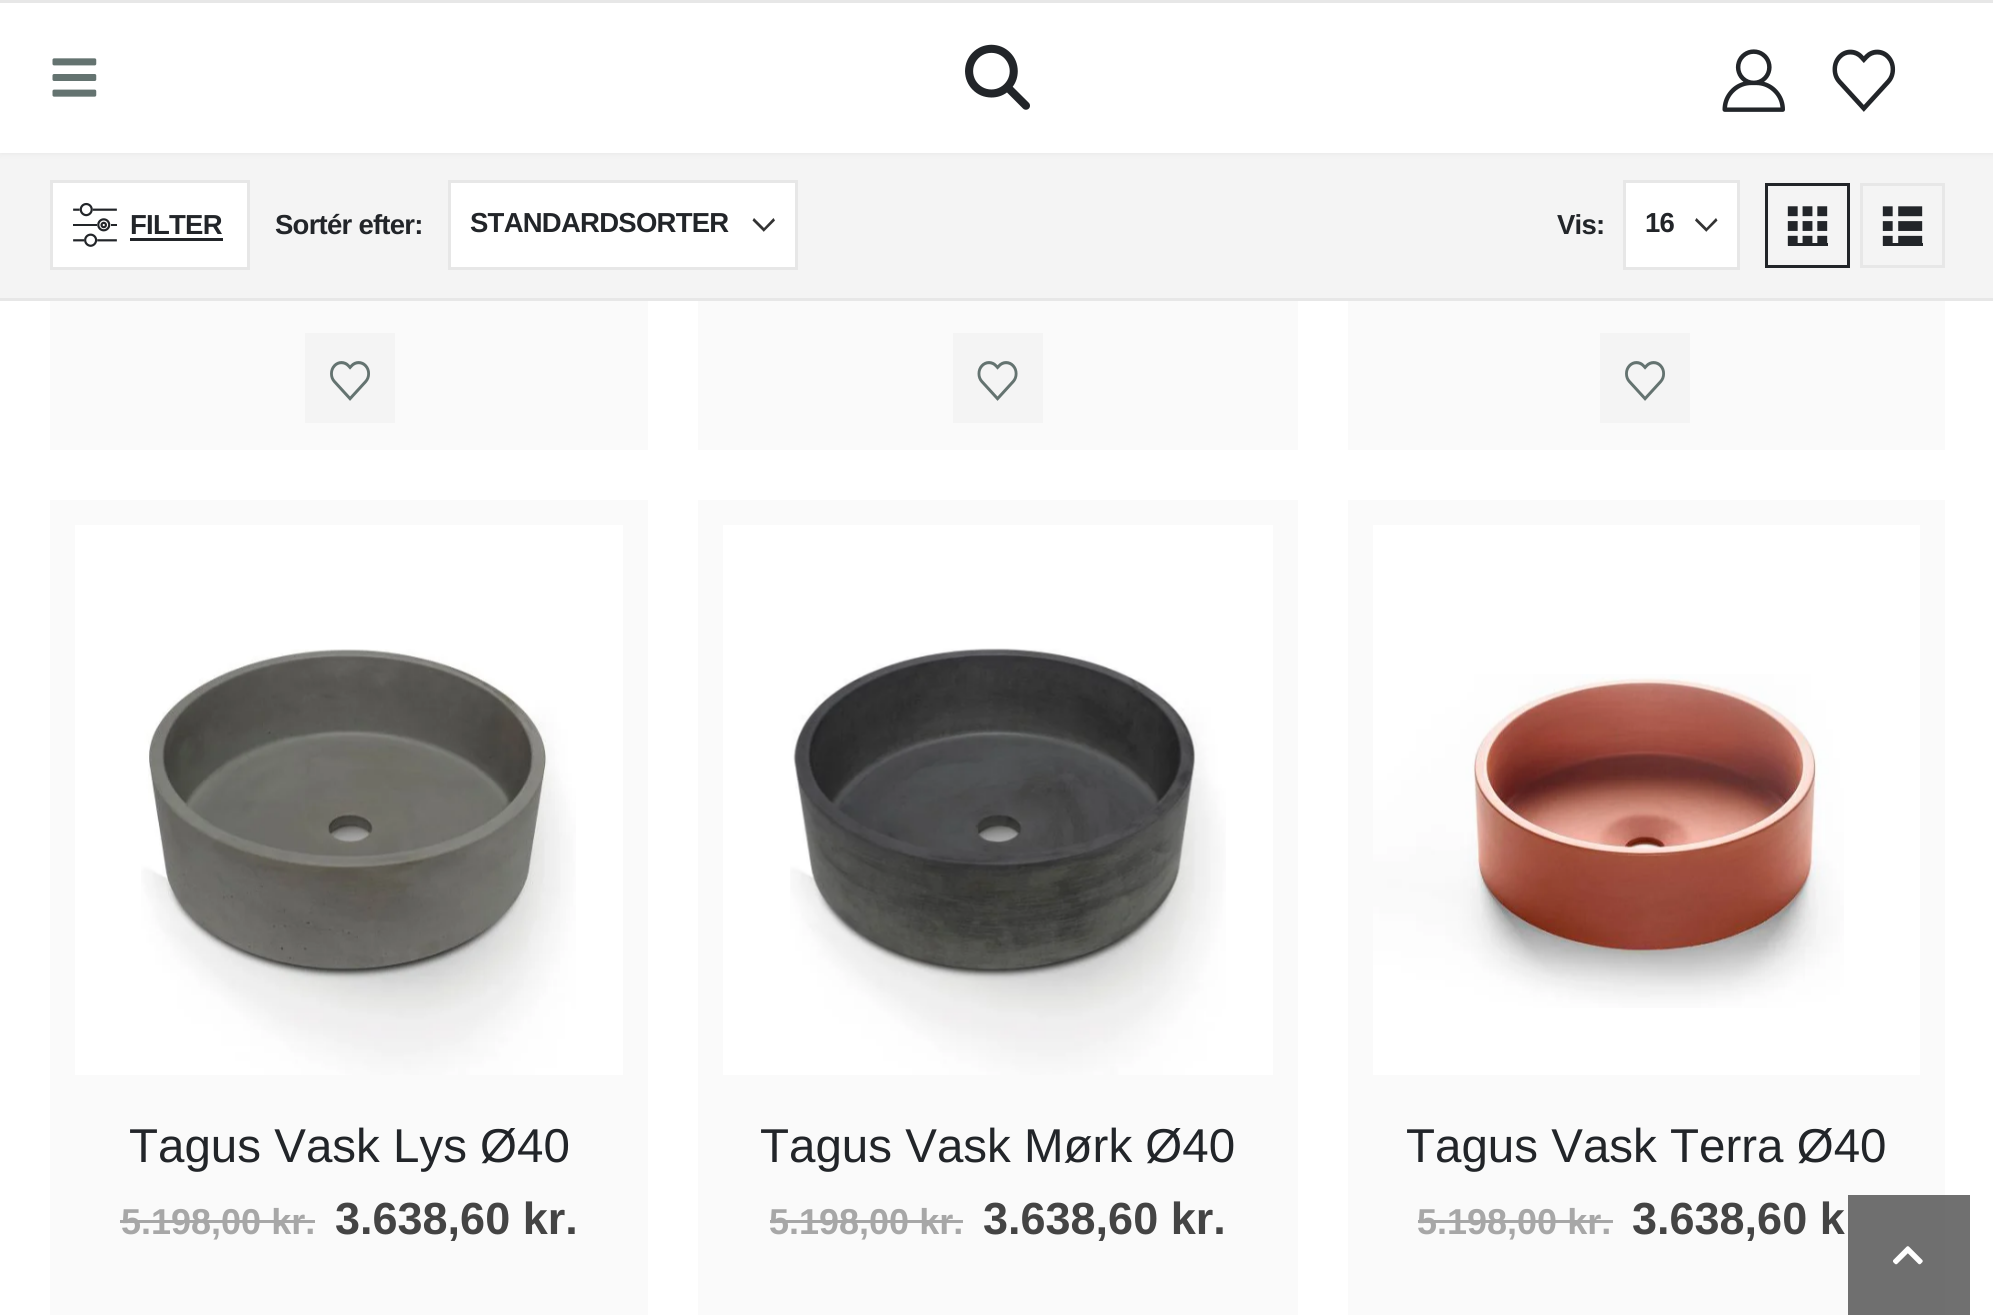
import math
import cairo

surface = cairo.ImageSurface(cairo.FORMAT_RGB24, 1993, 1315)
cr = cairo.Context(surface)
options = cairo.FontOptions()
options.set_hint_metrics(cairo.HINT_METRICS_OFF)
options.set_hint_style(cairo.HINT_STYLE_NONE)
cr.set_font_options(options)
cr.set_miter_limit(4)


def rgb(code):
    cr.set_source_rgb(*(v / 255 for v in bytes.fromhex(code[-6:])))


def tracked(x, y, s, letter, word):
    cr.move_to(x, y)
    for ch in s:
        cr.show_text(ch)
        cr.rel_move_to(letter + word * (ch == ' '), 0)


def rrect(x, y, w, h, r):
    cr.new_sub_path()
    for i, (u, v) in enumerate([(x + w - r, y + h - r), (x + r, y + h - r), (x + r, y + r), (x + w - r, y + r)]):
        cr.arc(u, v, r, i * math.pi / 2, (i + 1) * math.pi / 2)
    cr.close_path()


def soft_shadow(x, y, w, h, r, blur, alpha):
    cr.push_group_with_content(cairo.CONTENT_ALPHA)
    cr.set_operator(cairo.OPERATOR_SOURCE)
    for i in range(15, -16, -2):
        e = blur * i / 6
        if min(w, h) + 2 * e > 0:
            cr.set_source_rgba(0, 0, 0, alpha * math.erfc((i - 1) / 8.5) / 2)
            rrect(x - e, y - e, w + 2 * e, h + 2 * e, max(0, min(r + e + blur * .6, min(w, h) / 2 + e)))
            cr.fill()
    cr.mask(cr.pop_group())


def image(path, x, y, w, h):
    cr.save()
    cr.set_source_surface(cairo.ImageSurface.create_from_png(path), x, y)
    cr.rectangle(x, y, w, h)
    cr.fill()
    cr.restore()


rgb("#ffffff")
cr.paint()
rgb("#f4f4f4")
cr.rectangle(0, 153, 1993, 145)
cr.fill()
rgb("#000000")
soft_shadow(0, 0, 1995, 153, 0, 4, 0.06)
rgb("#ffffff")
cr.rectangle(0, 3, 1993, 150)
cr.fill()
rgb("#e7e7e7")
cr.rectangle(0, 0, 1993, 3)
cr.fill()
image("img/1.png", 52, 58, 45, 39)
image("img/2.png", 965, 44, 65, 66)
image("img/3.png", 1722, 49, 63, 63)
image("img/4.png", 1832, 49, 64, 63)
cr.rectangle(0, 298, 1993, 3)
cr.fill()
rgb("#ffffff")
cr.rectangle(51.5, 181.5, 197, 87)
cr.fill_preserve()
rgb("#e7e7e7")
cr.set_line_width(3)
cr.stroke()
image("img/5.png", 73, 202, 44, 45)
rgb("#222529")
cr.rectangle(130, 238, 93, 3)
cr.fill()
rgb("#ffffff")
cr.rectangle(451, 183, 344, 84)
cr.fill()
rgb("#333333")
cr.set_fill_rule(cairo.FILL_RULE_EVEN_ODD)
cr.new_path()
cr.move_to(764, 231.5)
cr.line_to(775, 220.5)
cr.line_to(773.5, 218)
cr.line_to(764, 228)
cr.line_to(754, 218)
cr.line_to(752.5, 220.5)
cr.line_to(764, 232)
cr.close_path()
cr.fill()
cr.rectangle(449.5, 181.5, 347, 87)
rgb("#e7e7e7")
cr.stroke()
rgb("#ffffff")
cr.rectangle(1626, 183, 111, 84)
cr.fill()
rgb("#333333")
cr.new_path()
cr.move_to(1706.5, 231.5)
cr.line_to(1717.5, 220.5)
cr.line_to(1716, 218)
cr.line_to(1706.5, 228)
cr.line_to(1696.5, 218)
cr.line_to(1695, 220.5)
cr.line_to(1706.5, 232)
cr.close_path()
cr.fill()
cr.rectangle(1624.5, 181.5, 114, 87)
rgb("#e7e7e7")
cr.stroke()
cr.rectangle(1766.5, 184.5, 82, 82)
rgb("#222529")
cr.stroke()
cr.rectangle(1788, 243, 40, 3)
cr.fill()
image("img/6.png", 1787, 206, 41, 40)
cr.rectangle(1861.5, 184.5, 82, 82)
rgb("#e7e7e7")
cr.stroke()
rgb("#222529")
cr.rectangle(1883, 243, 40, 3)
cr.fill()
image("img/7.png", 1882, 206, 41, 40)
rgb("#fafafa")
cr.rectangle(50, 301, 598, 149)
cr.fill()
rgb("#f4f4f4")
cr.rectangle(305, 333, 90, 90)
cr.fill()
image("img/8.png", 330, 361, 40, 40)
rgb("#fafafa")
cr.rectangle(698, 301, 600, 149)
cr.fill()
rgb("#f4f4f4")
cr.rectangle(953, 333, 90, 90)
cr.fill()
image("img/9.png", 977, 361, 41, 40)
rgb("#fafafa")
cr.rectangle(1348, 301, 597, 149)
cr.fill()
rgb("#f4f4f4")
cr.rectangle(1600, 333, 90, 90)
cr.fill()
image("img/8.png", 1625, 361, 40, 40)
rgb("#fafafa")
cr.rectangle(50, 500, 598, 815)
cr.fill()
rgb("#ffffff")
cr.rectangle(75, 525, 548, 550)
cr.fill()
image("img/10.png", 141, 649, 435, 426)
for x, y, w, h, color in [
    (120, 1220, 195, 3, "#a7a7a7"),
    (698, 500, 600, 815, "#fafafa"),
    (723, 525, 550, 550, "#ffffff"),
]:
    rgb(color)
    cr.rectangle(x, y, w, h)
    cr.fill()
image("img/11.png", 790, 648, 436, 427)
for x, y, w, h, color in [
    (770, 1220, 193, 3, "#a7a7a7"),
    (1348, 500, 597, 815, "#fafafa"),
    (1373, 525, 547, 550, "#ffffff"),
]:
    rgb(color)
    cr.rectangle(x, y, w, h)
    cr.fill()
image("img/12.png", 1373, 674, 471, 334)
rgb("#a7a7a7")
cr.rectangle(1418, 1220, 195, 3)
cr.fill()
cr.set_source_rgba(0.251, 0.251, 0.251, 0.75)
cr.rectangle(1848, 1195, 122, 120)
cr.fill()
image("img/13.png", 1893, 1246, 30, 19)
cr.select_font_face("Liberation Sans", cairo.FONT_SLANT_NORMAL, cairo.FONT_WEIGHT_BOLD)
cr.set_font_size(27.5)
rgb("#222529")
for x, y, s in [
    (130, 234, "FILTER"),
    (275, 234, "Sortér efter:"),
    (470, 232, "STANDARDSORTER"),
    (1557, 234, "Vis:"),
    (1645, 232, "16"),
]:
    tracked(x, y, s, -0.75, 0)
cr.select_font_face("Liberation Sans")
cr.set_font_size(47.5)
cr.move_to(129, 1162)
cr.show_text("Tagus Vask Lys Ø40")
cr.select_font_face("Liberation Sans", cairo.FONT_SLANT_NORMAL, cairo.FONT_WEIGHT_BOLD)
cr.set_font_size(36)
rgb("#a7a7a7")
cr.move_to(121, 1234)
cr.show_text("5.198,00 kr.")
cr.set_font_size(45)
rgb("#444444")
cr.move_to(335, 1234)
cr.show_text("3.638,60 kr.")
cr.select_font_face("Liberation Sans")
cr.set_font_size(47.5)
rgb("#222529")
cr.move_to(760, 1162)
cr.show_text("Tagus Vask Mørk Ø40")
cr.select_font_face("Liberation Sans", cairo.FONT_SLANT_NORMAL, cairo.FONT_WEIGHT_BOLD)
cr.set_font_size(36)
rgb("#a7a7a7")
cr.move_to(769, 1234)
cr.show_text("5.198,00 kr.")
cr.set_font_size(45)
rgb("#444444")
cr.move_to(983, 1234)
cr.show_text("3.638,60 kr.")
cr.select_font_face("Liberation Sans")
cr.set_font_size(47.5)
rgb("#222529")
cr.move_to(1406, 1162)
cr.show_text("Tagus Vask Terra Ø40")
cr.select_font_face("Liberation Sans", cairo.FONT_SLANT_NORMAL, cairo.FONT_WEIGHT_BOLD)
cr.set_font_size(36)
rgb("#a7a7a7")
cr.move_to(1417, 1234)
cr.show_text("5.198,00 kr.")
cr.set_font_size(45)
rgb("#444444")
cr.move_to(1632, 1234)
cr.show_text("3.638,60 k")
surface.write_to_png("page.png")
